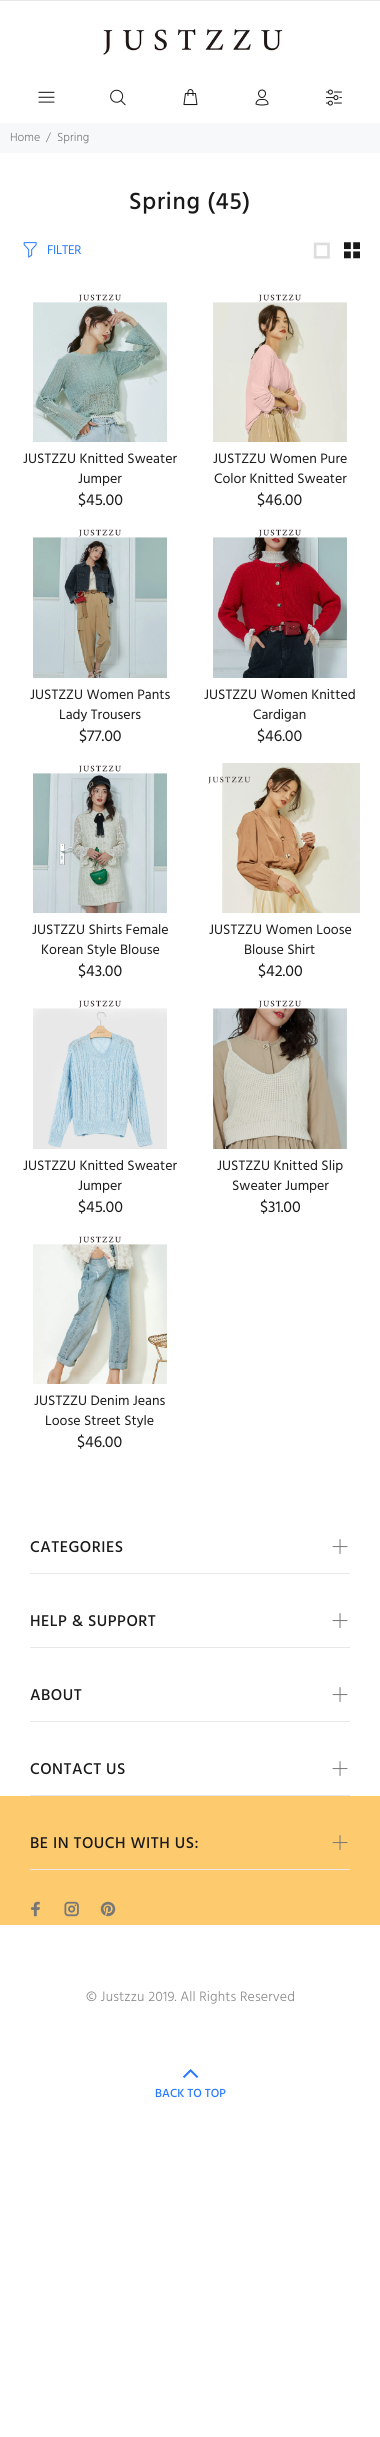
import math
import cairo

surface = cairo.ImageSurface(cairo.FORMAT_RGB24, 380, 2437)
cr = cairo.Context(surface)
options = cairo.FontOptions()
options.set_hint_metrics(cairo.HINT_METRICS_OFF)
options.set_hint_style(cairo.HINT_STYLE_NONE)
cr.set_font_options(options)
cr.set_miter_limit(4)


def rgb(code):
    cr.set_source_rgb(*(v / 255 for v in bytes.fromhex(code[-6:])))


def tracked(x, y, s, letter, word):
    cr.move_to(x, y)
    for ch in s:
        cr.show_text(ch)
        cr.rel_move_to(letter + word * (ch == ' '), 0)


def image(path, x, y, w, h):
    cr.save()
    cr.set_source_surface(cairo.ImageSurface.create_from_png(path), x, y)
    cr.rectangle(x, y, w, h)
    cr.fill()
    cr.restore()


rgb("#ffffff")
cr.paint()
rgb("#e9e7e7")
cr.rectangle(0, 0, 380, 1)
cr.fill()
image("img/1.png", 103, 28, 180, 27)
image("img/2.png", 38, 91, 17, 12)
image("img/3.png", 110, 89, 16, 17)
image("img/4.png", 183, 89, 15, 17)
image("img/5.png", 255, 89, 14, 17)
image("img/6.png", 325, 89, 17, 17)
rgb("#f7f8fa")
cr.rectangle(0, 123, 380, 30)
cr.fill()
image("img/7.png", 23, 242, 14, 16)
image("img/8.png", 313, 242, 17, 17)
image("img/9.png", 344, 242, 16, 17)
image("img/10.png", 33, 294, 134, 148)
image("img/11.png", 213, 294, 134, 148)
image("img/12.png", 33, 529, 134, 149)
image("img/13.png", 213, 529, 134, 149)
image("img/14.png", 33, 765, 134, 148)
image("img/15.png", 208, 763, 152, 150)
image("img/16.png", 33, 1000, 134, 149)
image("img/17.png", 213, 1000, 134, 149)
image("img/18.png", 33, 1236, 134, 148)
rgb("#e9e7e7")
cr.rectangle(30, 1573, 320, 1)
cr.fill()
image("img/19.png", 332, 1539, 16, 15)
cr.rectangle(30, 1647, 320, 1)
cr.fill()
image("img/19.png", 332, 1613, 16, 15)
cr.rectangle(30, 1721, 320, 1)
cr.fill()
image("img/19.png", 332, 1687, 16, 15)
cr.rectangle(30, 1795, 320, 1)
cr.fill()
image("img/19.png", 332, 1761, 16, 15)
rgb("#fdcb6e")
cr.rectangle(0, 1796, 380, 129)
cr.fill()
rgb("#e9e7e7")
cr.rectangle(30, 1869, 320, 1)
cr.fill()
image("img/20.png", 332, 1835, 16, 15)
image("img/21.png", 31, 1901, 10, 16)
image("img/22.png", 64, 1901, 15, 16)
image("img/23.png", 100, 1901, 16, 16)
image("img/24.png", 183, 2069, 16, 9)
cr.select_font_face("Hind Light")
cr.set_font_size(12)
rgb("#777777")
for x, y, s in [
    (10, 141, "Home"),
    (46, 141, "/"),
    (57, 141, "Spring"),
]:
    cr.move_to(x, y)
    cr.show_text(s)
cr.select_font_face("Hind Medium")
cr.set_font_size(24)
rgb("#191919")
tracked(129, 209, "Spring (45)", 0.75, 0)
cr.select_font_face("Hind")
cr.set_font_size(13)
rgb("#2879fe")
tracked(47, 254, "FILTER", -0.25, 0)
cr.set_font_size(14)
rgb("#191919")
cr.move_to(23, 463)
cr.show_text("JUSTZZU Knitted Sweater")
cr.move_to(78, 483)
cr.show_text("Jumper")
cr.set_font_size(16)
cr.move_to(78, 505)
cr.show_text("$45.00")
cr.set_font_size(14)
cr.move_to(213, 463)
cr.show_text("JUSTZZU Women Pure")
cr.move_to(214, 483)
cr.show_text("Color Knitted Sweater")
cr.set_font_size(16)
cr.move_to(257, 505)
cr.show_text("$46.00")
cr.set_font_size(14)
cr.move_to(30, 699)
cr.show_text("JUSTZZU Women Pants")
cr.move_to(59, 719)
cr.show_text("Lady Trousers")
cr.set_font_size(16)
cr.move_to(79, 741)
cr.show_text("$77.00")
cr.set_font_size(14)
cr.move_to(204, 699)
cr.show_text("JUSTZZU Women Knitted")
cr.move_to(253, 719)
cr.show_text("Cardigan")
cr.set_font_size(16)
cr.move_to(257, 741)
cr.show_text("$46.00")
cr.set_font_size(14)
cr.move_to(32, 934)
cr.show_text("JUSTZZU Shirts Female")
cr.move_to(41, 954)
cr.show_text("Korean Style Blouse")
cr.set_font_size(16)
cr.move_to(78, 976)
cr.show_text("$43.00")
cr.set_font_size(14)
cr.move_to(209, 934)
cr.show_text("JUSTZZU Women Loose")
cr.move_to(244, 954)
cr.show_text("Blouse Shirt")
cr.set_font_size(16)
cr.move_to(258, 976)
cr.show_text("$42.00")
cr.set_font_size(14)
cr.move_to(23, 1170)
cr.show_text("JUSTZZU Knitted Sweater")
cr.move_to(78, 1190)
cr.show_text("Jumper")
cr.set_font_size(16)
cr.move_to(78, 1212)
cr.show_text("$45.00")
cr.set_font_size(14)
cr.move_to(217, 1170)
cr.show_text("JUSTZZU Knitted Slip")
cr.move_to(232, 1190)
cr.show_text("Sweater Jumper")
cr.set_font_size(16)
cr.move_to(260, 1212)
cr.show_text("$31.00")
cr.set_font_size(14)
cr.move_to(34, 1405)
cr.show_text("JUSTZZU Denim Jeans")
cr.move_to(45, 1425)
cr.show_text("Loose Street Style")
cr.set_font_size(16)
cr.move_to(77, 1447)
cr.show_text("$46.00")
cr.select_font_face("Hind Medium")
for x, y, s in [
    (30, 1552, "CATEGORIES"),
    (30, 1626, "HELP & SUPPORT"),
    (30, 1700, "ABOUT"),
    (30, 1774, "CONTACT US"),
    (30, 1848, "BE IN TOUCH WITH US:"),
]:
    tracked(x, y, s, 0.5, 0)
cr.select_font_face("Hind Light")
cr.set_font_size(14)
rgb("#888888")
tracked(86, 2001, "© Justzzu 2019. All Rights Reserved", 0.15, 0)
cr.select_font_face("Hind Medium")
cr.set_font_size(12)
rgb("#2879fe")
cr.move_to(155, 2097)
cr.show_text("BACK TO TOP")
surface.write_to_png("page.png")
